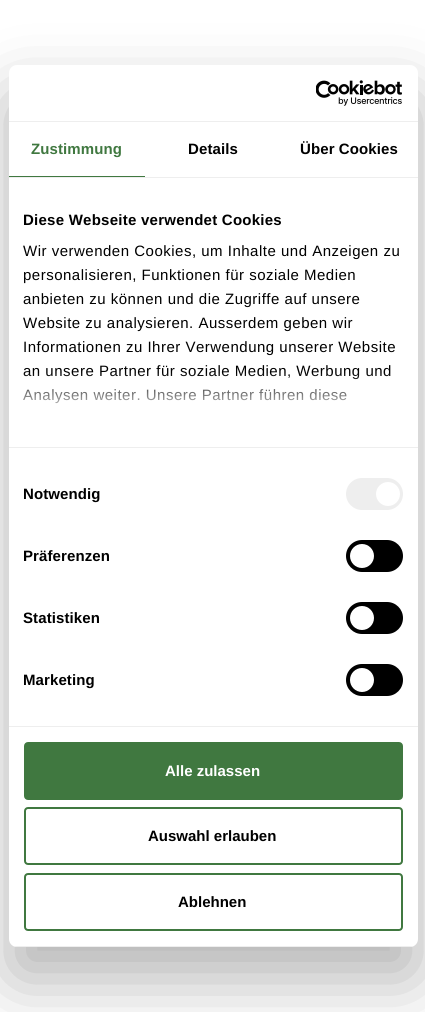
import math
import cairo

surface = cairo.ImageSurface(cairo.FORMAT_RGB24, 425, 1012)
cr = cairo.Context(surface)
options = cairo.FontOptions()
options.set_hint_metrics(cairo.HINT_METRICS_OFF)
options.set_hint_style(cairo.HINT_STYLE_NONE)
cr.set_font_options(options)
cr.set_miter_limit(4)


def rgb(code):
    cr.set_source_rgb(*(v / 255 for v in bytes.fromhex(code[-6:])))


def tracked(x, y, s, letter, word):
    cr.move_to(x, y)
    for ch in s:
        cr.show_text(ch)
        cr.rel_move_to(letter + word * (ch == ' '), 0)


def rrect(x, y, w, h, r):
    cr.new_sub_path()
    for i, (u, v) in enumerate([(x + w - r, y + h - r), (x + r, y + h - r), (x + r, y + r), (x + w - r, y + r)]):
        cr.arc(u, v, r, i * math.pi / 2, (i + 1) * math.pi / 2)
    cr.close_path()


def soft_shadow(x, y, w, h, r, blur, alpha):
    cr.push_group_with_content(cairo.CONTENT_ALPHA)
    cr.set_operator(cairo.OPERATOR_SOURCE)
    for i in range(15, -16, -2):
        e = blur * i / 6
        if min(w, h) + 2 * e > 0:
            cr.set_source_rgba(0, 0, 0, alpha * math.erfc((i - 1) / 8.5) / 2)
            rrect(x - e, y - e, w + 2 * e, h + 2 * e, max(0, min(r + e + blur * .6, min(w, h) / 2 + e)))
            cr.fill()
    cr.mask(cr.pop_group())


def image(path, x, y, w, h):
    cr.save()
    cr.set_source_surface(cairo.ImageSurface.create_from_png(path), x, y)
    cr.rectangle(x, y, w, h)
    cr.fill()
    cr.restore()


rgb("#ffffff")
cr.paint()
rgb("#000000")
soft_shadow(9, 97, 409, 882, 8, 34, 0.3)
rgb("#ffffff")
rrect(9, 65, 409, 882, 8)
cr.fill()
rgb("#eeeeee")
cr.rectangle(9, 121, 409, 1)
cr.fill()
image("img/1.png", 316, 80, 86, 26)
for x, y, w, h, color in [
    (9, 177, 409, 1, "#eeeeee"),
    (9, 176, 136, 1, "#407840"),
    (9, 447, 409, 1, "#eeeeee"),
    (9, 726, 409, 1, "#eeeeee"),
]:
    rgb(color)
    cr.rectangle(x, y, w, h)
    cr.fill()
rrect(346, 478, 57, 32, 16)
cr.fill()
rgb("#ffffff")
cr.arc(388, 494, 12, 0, 2 * math.pi)
cr.fill()
rgb("#000000")
rrect(346, 540, 57, 32, 16)
cr.fill()
rgb("#ffffff")
cr.arc(362, 556, 12, 0, 2 * math.pi)
cr.fill()
rgb("#000000")
rrect(346, 602, 57, 32, 16)
cr.fill()
rgb("#ffffff")
cr.arc(362, 618, 12, 0, 2 * math.pi)
cr.fill()
rgb("#000000")
rrect(346, 664, 57, 32, 16)
cr.fill()
rgb("#ffffff")
cr.arc(362, 680, 12, 0, 2 * math.pi)
cr.fill()
cr.save()
rrect(9, 65, 409, 882, 8)
cr.clip()
rgb("#eeeeee")
cr.rectangle(9, 946, 409, 1)
cr.fill()
cr.restore()
rgb("#407840")
rrect(25, 743, 377, 56, 3)
cr.fill_preserve()
cr.stroke()
rrect(25, 808, 377, 56, 3)
cr.stroke()
rrect(25, 874, 377, 56, 3)
cr.stroke()
cr.select_font_face("Liberation Sans", cairo.FONT_SLANT_NORMAL, cairo.FONT_WEIGHT_BOLD)
cr.set_font_size(15)
tracked(31, 154, "Zustimmung", 0.1, 0)
rgb("#000000")
tracked(188, 154, "Details", 0.1, 0)
tracked(300, 154, "Über Cookies", 0.1, 0)
tracked(23, 225, "Diese Webseite verwendet Cookies", 0.25, 0)
cr.select_font_face("Liberation Sans")
for x, y, s in [
    (23, 256, "Wir verwenden Cookies, um Inhalte und Anzeigen zu"),
    (23, 280, "personalisieren, Funktionen für soziale Medien"),
    (23, 304, "anbieten zu können und die Zugriffe auf unsere"),
    (23, 328, "Website zu analysieren. Ausserdem geben wir"),
    (23, 352, "Informationen zu Ihrer Verwendung unserer Website"),
    (23, 376, "an unsere Partner für soziale Medien, Werbung und"),
    (23, 400, "Analysen weiter. Unsere Partner führen diese"),
]:
    tracked(x, y, s, 0.5, 0)
gradient = cairo.LinearGradient(207, 447, 207, 372)
gradient.add_color_stop_rgba(0, 1, 1, 1, 1)
gradient.add_color_stop_rgba(0.5, 1, 1, 1, 0.8)
gradient.add_color_stop_rgba(1, 1, 1, 1, 0)
cr.set_source(gradient)
cr.rectangle(23, 373, 368, 31)
cr.fill()
cr.select_font_face("Liberation Sans", cairo.FONT_SLANT_NORMAL, cairo.FONT_WEIGHT_BOLD)
rgb("#000000")
for x, y, s in [
    (23, 499, "Notwendig"),
    (23, 561, "Präferenzen"),
    (23, 623, "Statistiken"),
    (23, 685, "Marketing"),
]:
    tracked(x, y, s, 0.1, 0)
rgb("#ffffff")
cr.move_to(165, 776)
cr.show_text("Alle zulassen")
rgb("#000000")
cr.move_to(148, 841)
cr.show_text("Auswahl erlauben")
cr.move_to(178, 907)
cr.show_text("Ablehnen")
surface.write_to_png("page.png")
